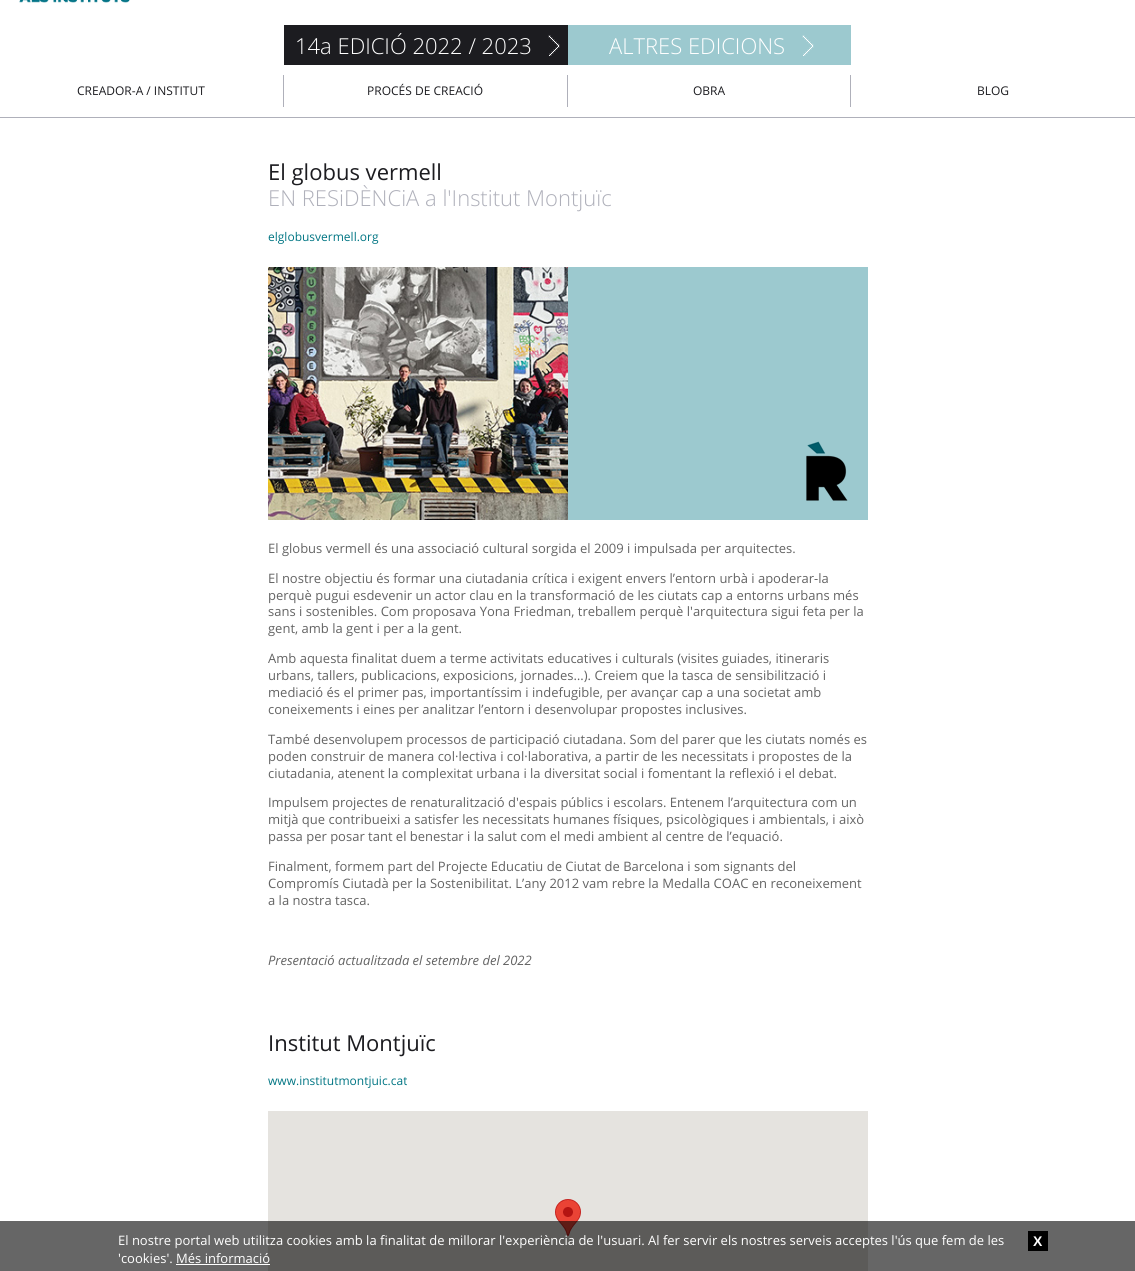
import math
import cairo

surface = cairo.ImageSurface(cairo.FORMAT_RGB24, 1135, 1271)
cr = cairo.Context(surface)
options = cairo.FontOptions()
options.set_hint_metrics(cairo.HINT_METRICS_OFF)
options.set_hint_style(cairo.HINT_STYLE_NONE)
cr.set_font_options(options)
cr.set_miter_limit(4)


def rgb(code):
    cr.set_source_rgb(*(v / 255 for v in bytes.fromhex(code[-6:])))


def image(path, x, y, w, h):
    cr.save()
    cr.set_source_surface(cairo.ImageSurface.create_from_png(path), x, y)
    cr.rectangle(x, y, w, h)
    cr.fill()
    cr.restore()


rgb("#ffffff")
cr.paint()
image("img/1.png", 19, 0, 111, 3)
rgb("#afb0ba")
cr.rectangle(0, 117, 1135, 1)
cr.fill()
rgb("#1c1c20")
cr.rectangle(284, 25, 284, 40)
cr.fill()
image("img/2.png", 548, 35, 12, 21)
rgb("#9cc9cf")
cr.rectangle(568, 25, 283, 40)
cr.fill()
image("img/3.png", 802, 35, 12, 21)
for x, y, w, h, color in [
    (283, 75, 1, 32, "#afb0ba"),
    (567, 75, 1, 32, "#afb0ba"),
    (850, 75, 1, 32, "#afb0ba"),
]:
    rgb(color)
    cr.rectangle(x, y, w, h)
    cr.fill()
image("img/4.png", 268, 267, 300, 253)
image("img/5.png", 568, 267, 300, 253)
rgb("#e5e3df")
cr.rectangle(268, 1111, 600, 160)
cr.fill()
image("img/6.png", 555, 1199, 26, 37)
cr.set_source_rgba(0, 0, 0, 0.6)
cr.rectangle(0, 1221, 1135, 50)
cr.fill()
rgb("#000000")
cr.rectangle(1028, 1231, 20, 20)
cr.fill()
rgb("#ffffff")
cr.rectangle(176, 1264, 94, 1)
cr.fill()
cr.select_font_face("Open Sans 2 Light")
cr.set_font_size(22)
cr.move_to(295, 54)
cr.show_text("14a EDICIÓ 2022 / 2023")
cr.move_to(609, 54)
cr.show_text("ALTRES EDICIONS")
cr.select_font_face("Open Sans")
cr.set_font_size(12)
rgb("#1c1c20")
for x, y, s in [
    (77, 95, "CREADOR-A / INSTITUT"),
    (367, 95, "PROCÉS DE CREACIÓ"),
    (693, 95, "OBRA"),
    (977, 95, "BLOG"),
]:
    cr.move_to(x, y)
    cr.show_text(s)
cr.set_font_size(22)
cr.move_to(268, 180)
cr.show_text("El globus vermell")
cr.select_font_face("Open Sans Light")
rgb("#afb0ba")
cr.move_to(268, 206)
cr.show_text("EN RESiDÈNCiA a l'Institut Montjuïc")
cr.select_font_face("Open Sans")
cr.set_font_size(12)
rgb("#007583")
cr.move_to(268, 241)
cr.show_text("elglobusvermell.org")
cr.set_font_size(13)
rgb("#636363")
for x, y, s in [
    (268, 553, "El globus vermell és una associació cultural sorgida el 2009 i impulsada per arquitectes."),
    (268, 583, "El nostre objectiu és formar una ciutadania crítica i exigent envers l’entorn urbà i apoderar-la"),
    (268, 600, "perquè pugui esdevenir un actor clau en la transformació de les ciutats cap a entorns urbans més"),
    (268, 616, "sans i sostenibles. Com proposava Yona Friedman, treballem perquè l'arquitectura sigui feta per la"),
    (268, 633, "gent, amb la gent i per a la gent."),
    (268, 663, "Amb aquesta finalitat duem a terme activitats educatives i culturals (visites guiades, itineraris"),
    (268, 680, "urbans, tallers, publicacions, exposicions, jornades…). Creiem que la tasca de sensibilització i"),
    (268, 697, "mediació és el primer pas, importantíssim i indefugible, per avançar cap a una societat amb"),
    (268, 714, "coneixements i eines per analitzar l’entorn i desenvolupar propostes inclusives."),
    (268, 744, "També desenvolupem processos de participació ciutadana. Som del parer que les ciutats només es"),
    (268, 761, "poden construir de manera col·lectiva i col·laborativa, a partir de les necessitats i propostes de la"),
    (268, 778, "ciutadania, atenent la complexitat urbana i la diversitat social i fomentant la reflexió i el debat."),
    (268, 807, "Impulsem projectes de renaturalització d'espais públics i escolars. Entenem l’arquitectura com un"),
    (268, 824, "mitjà que contribueixi a satisfer les necessitats humanes físiques, psicològiques i ambientals, i això"),
    (268, 841, "passa per posar tant el benestar i la salut com el medi ambient al centre de l’equació."),
    (268, 871, "Finalment, formem part del Projecte Educatiu de Ciutat de Barcelona i som signants del"),
    (268, 888, "Compromís Ciutadà per la Sostenibilitat. L’any 2012 vam rebre la Medalla COAC en reconeixement"),
    (268, 905, "a la nostra tasca."),
]:
    cr.move_to(x, y)
    cr.show_text(s)
cr.select_font_face("Open Sans", cairo.FONT_SLANT_ITALIC)
cr.move_to(268, 965)
cr.show_text("Presentació actualitzada el setembre del 2022")
cr.select_font_face("Open Sans")
cr.set_font_size(22)
rgb("#1c1c20")
cr.move_to(268, 1051)
cr.show_text("Institut Montjuïc")
cr.set_font_size(12)
rgb("#007583")
cr.move_to(268, 1085)
cr.show_text("www.institutmontjuic.cat")
cr.set_font_size(13)
rgb("#ffffff")
cr.move_to(118, 1245)
cr.show_text("El nostre portal web utilitza cookies amb la finalitat de millorar l'experiència de l'usuari. Al fer servir els nostres serveis acceptes l'ús que fem de les")
cr.select_font_face("Liberation Sans", cairo.FONT_SLANT_NORMAL, cairo.FONT_WEIGHT_BOLD)
cr.set_font_size(14)
cr.move_to(1033, 1246)
cr.show_text("X")
cr.select_font_face("Open Sans")
cr.set_font_size(13)
cr.move_to(118, 1263)
cr.show_text("'cookies'. Més informació")
surface.write_to_png("page.png")
